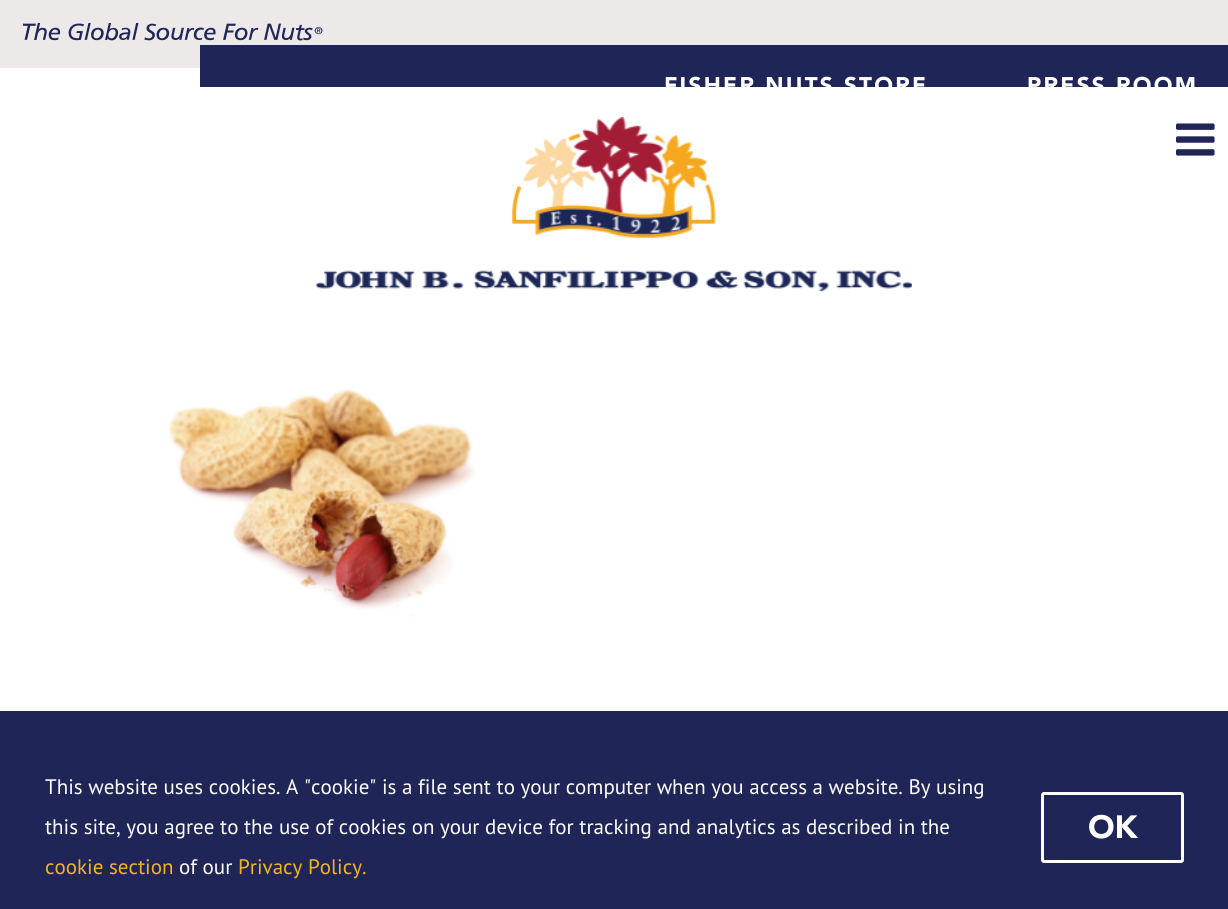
import math
import cairo

surface = cairo.ImageSurface(cairo.FORMAT_RGB24, 1228, 909)
cr = cairo.Context(surface)
options = cairo.FontOptions()
options.set_hint_metrics(cairo.HINT_METRICS_OFF)
options.set_hint_style(cairo.HINT_STYLE_NONE)
cr.set_font_options(options)
cr.set_miter_limit(4)


def rgb(code):
    cr.set_source_rgb(*(v / 255 for v in bytes.fromhex(code[-6:])))


def tracked(x, y, s, letter, word):
    cr.move_to(x, y)
    for ch in s:
        cr.show_text(ch)
        cr.rel_move_to(letter + word * (ch == ' '), 0)


def rrect(x, y, w, h, r):
    cr.new_sub_path()
    for i, (u, v) in enumerate([(x + w - r, y + h - r), (x + r, y + h - r), (x + r, y + r), (x + w - r, y + r)]):
        cr.arc(u, v, r, i * math.pi / 2, (i + 1) * math.pi / 2)
    cr.close_path()


def image(path, x, y, w, h):
    cr.save()
    cr.set_source_surface(cairo.ImageSurface.create_from_png(path), x, y)
    cr.rectangle(x, y, w, h)
    cr.fill()
    cr.restore()


rgb("#ffffff")
cr.paint()
rgb("#ece9e8")
cr.rectangle(0, 0, 1228, 68)
cr.fill()
image("img/1.png", 23, 23, 300, 18)
rgb("#202558")
cr.rectangle(200, 45, 1028, 42)
cr.fill()
image("img/2.png", 316, 117, 596, 175)
image("img/3.png", 1176, 123, 39, 33)
image("img/4.png", 168, 388, 308, 230)
cr.rectangle(0, 711, 1228, 198)
cr.fill()
rrect(1042.5, 793.5, 140, 68, 1.5)
rgb("#ffffff")
cr.set_line_width(3)
cr.stroke()
cr.select_font_face("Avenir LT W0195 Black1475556 Black")
cr.set_font_size(22.5)
tracked(664, 93, "FISHER NUTS STORE", 2.25, 0)
tracked(1027, 93, "PRESS ROOM", 2.25, 0)
cr.select_font_face("PT Sans")
cr.set_font_size(21)
cr.move_to(45, 794)
cr.show_text("This website uses cookies. A \"cookie\" is a file sent to your computer when you access a website. By using")
cr.move_to(45, 834)
cr.show_text("this site, you agree to the use of cookies on your device for tracking and analytics as described in the")
rgb("#f5b324")
cr.move_to(45, 874)
cr.show_text("cookie section")
rgb("#ffffff")
cr.move_to(179, 874)
cr.show_text("of our")
rgb("#f5b324")
cr.move_to(238, 874)
cr.show_text("Privacy Policy.")
cr.select_font_face("Avenir LT W0195 Black1475556 Black")
cr.set_font_size(32)
rgb("#ffffff")
cr.move_to(1088, 838)
cr.show_text("OK")
surface.write_to_png("page.png")
